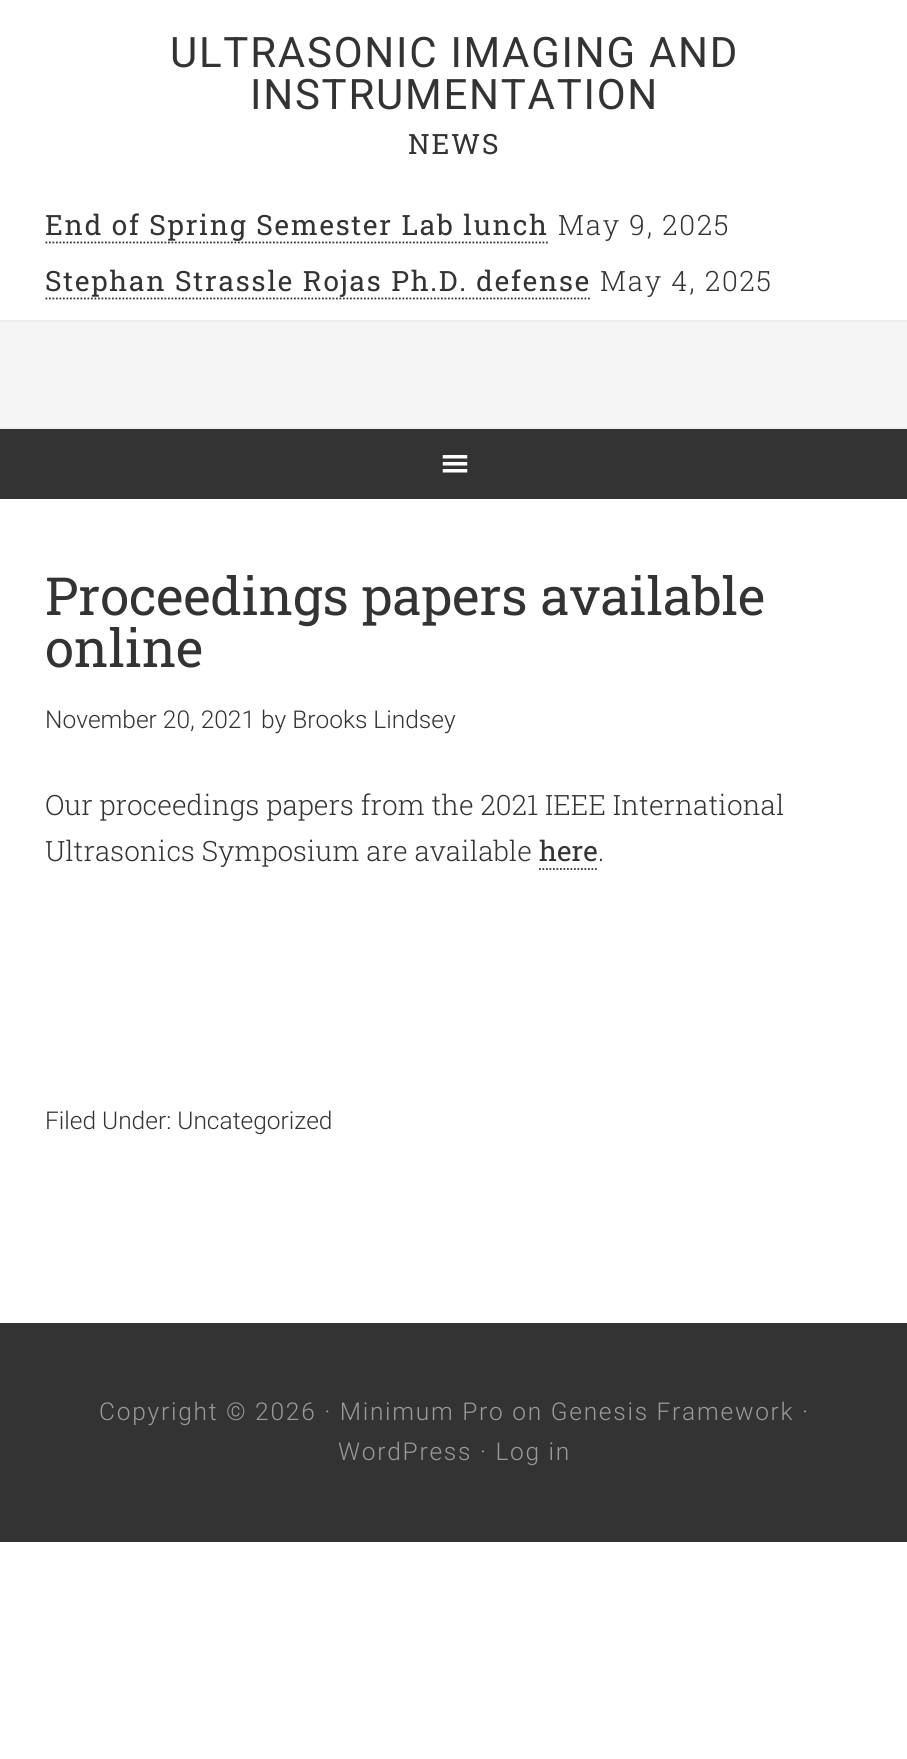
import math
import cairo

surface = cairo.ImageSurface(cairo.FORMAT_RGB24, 907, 1759)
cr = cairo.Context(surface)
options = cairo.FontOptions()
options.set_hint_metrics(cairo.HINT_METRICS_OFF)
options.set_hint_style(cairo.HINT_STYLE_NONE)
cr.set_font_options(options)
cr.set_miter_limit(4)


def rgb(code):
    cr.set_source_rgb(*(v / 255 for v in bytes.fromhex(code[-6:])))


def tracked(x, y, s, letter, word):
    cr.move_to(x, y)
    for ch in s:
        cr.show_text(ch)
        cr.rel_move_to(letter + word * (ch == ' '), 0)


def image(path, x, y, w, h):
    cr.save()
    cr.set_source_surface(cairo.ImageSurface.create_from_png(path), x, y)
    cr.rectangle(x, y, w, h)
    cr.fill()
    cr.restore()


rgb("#ffffff")
cr.paint()
rgb("#eeeeee")
cr.rectangle(0, 320, 907, 2)
cr.fill()
cr.new_path()
cr.move_to(45.5, 242.5)
cr.line_to(549.5, 242.5)
rgb("#333333")
cr.set_line_width(1.8)
cr.set_dash([1.75, 1.75])
cr.stroke()
cr.new_path()
cr.move_to(45.5, 298.5)
cr.line_to(591.5, 298.5)
cr.stroke()
for x, y, w, h, color in [
    (0, 322, 907, 105, "#f5f5f5"),
    (0, 427, 907, 2, "#eeeeee"),
    (0, 429, 907, 70, "#333333"),
]:
    rgb(color)
    cr.rectangle(x, y, w, h)
    cr.fill()
image("img/1.png", 442, 455, 26, 18)
cr.new_path()
cr.move_to(539, 869)
cr.line_to(598.5, 869)
cr.stroke()
cr.rectangle(0, 1323, 907, 219)
cr.fill()
cr.select_font_face("Roboto")
cr.set_font_size(42)
tracked(170, 67, "ULTRASONIC IMAGING AND", 1.75, 0)
tracked(250, 109, "INSTRUMENTATION", 1.75, 0)
cr.select_font_face("Roboto Slab")
cr.set_font_size(28)
tracked(408, 154, "NEWS", 1.75, 0)
tracked(45, 235, "End of Spring Semester Lab lunch", 1.75, 0)
cr.select_font_face("Roboto Slab Light")
tracked(558, 235, "May 9, 2025", 1.75, 0)
cr.select_font_face("Roboto Slab")
tracked(45, 291, "Stephan Strassle Rojas Ph.D. defense", 1.75, 0)
cr.select_font_face("Roboto Slab Light")
tracked(600, 291, "May 4, 2025", 1.75, 0)
cr.select_font_face("Roboto Slab")
cr.set_font_size(52.5)
cr.move_to(45, 615)
cr.show_text("Proceedings papers available")
cr.move_to(45, 667)
cr.show_text("online")
cr.select_font_face("Roboto Light")
cr.set_font_size(24.5)
cr.move_to(45, 728)
cr.show_text("November 20, 2021 by Brooks Lindsey")
cr.select_font_face("Roboto Slab Light")
cr.set_font_size(28)
cr.move_to(45, 815)
cr.show_text("Our proceedings papers from the 2021 IEEE International")
cr.move_to(45, 861)
cr.show_text("Ultrasonics Symposium are available")
cr.select_font_face("Roboto Slab")
cr.move_to(539, 861)
cr.show_text("here")
cr.select_font_face("Roboto Slab Light")
cr.move_to(598, 861)
cr.show_text(".")
cr.select_font_face("Roboto Light")
cr.set_font_size(24.5)
cr.move_to(45, 1129)
cr.show_text("Filed Under: Uncategorized")
rgb("#999999")
tracked(99, 1420, "Copyright © 2026 · Minimum Pro on Genesis Framework ·", 1.75, 0)
tracked(338, 1460, "WordPress · Log in", 1.75, 0)
surface.write_to_png("page.png")
